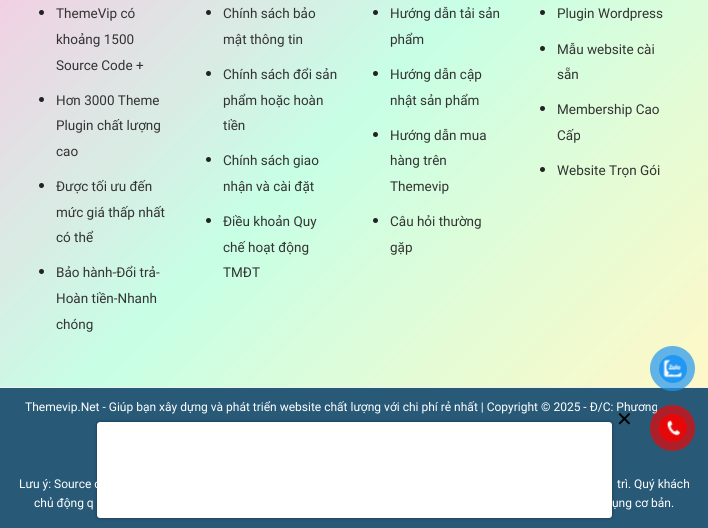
import math
import cairo

surface = cairo.ImageSurface(cairo.FORMAT_RGB24, 708, 528)
cr = cairo.Context(surface)
options = cairo.FontOptions()
options.set_hint_metrics(cairo.HINT_METRICS_OFF)
options.set_hint_style(cairo.HINT_STYLE_NONE)
cr.set_font_options(options)
cr.set_miter_limit(4)


def rgb(code):
    cr.set_source_rgb(*(v / 255 for v in bytes.fromhex(code[-6:])))


def rrect(x, y, w, h, r):
    cr.new_sub_path()
    for i, (u, v) in enumerate([(x + w - r, y + h - r), (x + r, y + h - r), (x + r, y + r), (x + w - r, y + r)]):
        cr.arc(u, v, r, i * math.pi / 2, (i + 1) * math.pi / 2)
    cr.close_path()


def soft_shadow(x, y, w, h, r, blur, alpha):
    cr.push_group_with_content(cairo.CONTENT_ALPHA)
    cr.set_operator(cairo.OPERATOR_SOURCE)
    for i in range(15, -16, -2):
        e = blur * i / 6
        if min(w, h) + 2 * e > 0:
            cr.set_source_rgba(0, 0, 0, alpha * math.erfc((i - 1) / 8.5) / 2)
            rrect(x - e, y - e, w + 2 * e, h + 2 * e, max(0, min(r + e + blur * .6, min(w, h) / 2 + e)))
            cr.fill()
    cr.mask(cr.pop_group())


def image(path, x, y, w, h):
    cr.save()
    cr.set_source_surface(cairo.ImageSurface.create_from_png(path), x, y)
    cr.rectangle(x, y, w, h)
    cr.fill()
    cr.restore()


rgb("#285a78")
cr.paint()
gradient = cairo.LinearGradient(41, -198, 667, 428)
gradient.add_color_stop_rgba(0, 1, 0.757, 0.89, 1)
gradient.add_color_stop_rgba(0.5, 0.78, 1, 0.898, 1)
gradient.add_color_stop_rgba(1, 1, 0.973, 0.78, 1)
cr.set_source(gradient)
cr.rectangle(0, 0, 708, 387)
cr.fill()
rgb("#232323")
cr.arc(41.5, 12.5, 2.5, 0, 2 * math.pi)
cr.fill()
cr.arc(41.5, 99.5, 2.5, 0, 2 * math.pi)
cr.fill()
cr.arc(41.5, 185.5, 2.5, 0, 2 * math.pi)
cr.fill()
cr.arc(41.5, 271.5, 2.5, 0, 2 * math.pi)
cr.fill()
cr.arc(208.5, 12.5, 2.5, 0, 2 * math.pi)
cr.fill()
cr.arc(208.5, 73.5, 2.5, 0, 2 * math.pi)
cr.fill()
cr.arc(208.5, 159.5, 2.5, 0, 2 * math.pi)
cr.fill()
cr.arc(208.5, 220.5, 2.5, 0, 2 * math.pi)
cr.fill()
cr.arc(375.5, 12.5, 2.5, 0, 2 * math.pi)
cr.fill()
cr.arc(375.5, 73.5, 2.5, 0, 2 * math.pi)
cr.fill()
cr.arc(375.5, 134.5, 2.5, 0, 2 * math.pi)
cr.fill()
cr.arc(375.5, 220.5, 2.5, 0, 2 * math.pi)
cr.fill()
cr.arc(542.5, 12.5, 2.5, 0, 2 * math.pi)
cr.fill()
cr.arc(542.5, 48.5, 2.5, 0, 2 * math.pi)
cr.fill()
cr.arc(542.5, 108.5, 2.5, 0, 2 * math.pi)
cr.fill()
cr.arc(542.5, 169.5, 2.5, 0, 2 * math.pi)
cr.fill()
rgb("#f0f0f0")
cr.rectangle(0, 387, 708, 1)
cr.fill()
rgb("#000000")
soft_shadow(97, 422, 515, 96, 3, 2, 0.4)
rgb("#ffffff")
rrect(97, 422, 515, 96, 3)
cr.fill()
cr.set_source_rgba(0.129, 0.588, 0.953, 0.7)
cr.arc(672.5, 368.5, 22.5, 0, 2 * math.pi)
cr.fill()
rgb("#2196f3")
cr.arc(673, 369, 14, 0, 2 * math.pi)
cr.fill()
image("img/1.png", 663, 359, 20, 19)
cr.select_font_face("Roboto")
cr.set_font_size(13.5)
rgb("#333333")
for x, y, s in [
    (56, 18, "ThemeVip có"),
    (56, 44, "khoảng 1500"),
    (56, 70, "Source Code +"),
    (56, 105, "Hơn 3000 Theme"),
    (56, 130, "Plugin chất lượng"),
    (56, 156, "cao"),
    (56, 191, "Được tối ưu đến"),
    (56, 217, "mức giá thấp nhất"),
    (56, 242, "có thể"),
    (56, 277, "Bảo hành-Đổi trả-"),
    (56, 303, "Hoàn tiền-Nhanh"),
    (56, 329, "chóng"),
    (223, 18, "Chính sách bảo"),
    (223, 44, "mật thông tin"),
    (223, 79, "Chính sách đổi sản"),
    (223, 105, "phẩm hoặc hoàn"),
    (223, 130, "tiền"),
    (223, 165, "Chính sách giao"),
    (223, 191, "nhận và cài đặt"),
    (223, 226, "Điều khoản Quy"),
    (223, 252, "chế hoạt động"),
    (223, 277, "TMĐT"),
    (390, 18, "Hướng dẫn tải sản"),
    (390, 44, "phẩm"),
    (390, 79, "Hướng dẫn cập"),
    (390, 105, "nhật sản phẩm"),
    (390, 140, "Hướng dẫn mua"),
    (390, 165, "hàng trên"),
    (390, 191, "Themevip"),
    (390, 226, "Câu hỏi thường"),
    (390, 252, "gặp"),
    (557, 18, "Plugin Wordpress"),
    (557, 54, "Mẫu website cài"),
    (557, 79, "sẵn"),
    (557, 114, "Membership Cao"),
    (557, 140, "Cấp"),
    (557, 175, "Website Trọn Gói"),
]:
    cr.move_to(x, y)
    cr.show_text(s)
cr.set_font_size(12)
rgb("#ffffff")
for x, y, s in [
    (25, 411, "Themevip.Net - Giúp bạn xây dựng và phát triển website chất lượng với chi phí rẻ nhất | Copyright © 2025 - Đ/C: Phương"),
    (19, 488, "Lưu ý: Source c"),
    (617, 488, "trì. Quý khách"),
    (34, 507, "chủ động q"),
    (612, 507, "ụng cơ bản."),
]:
    cr.move_to(x, y)
    cr.show_text(s)
cr.select_font_face("DejaVu Sans")
cr.set_font_size(20)
rgb("#000000")
cr.move_to(616, 426)
cr.show_text("✕")
cr.set_source_rgba(0.902, 0.031, 0.031, 0.7)
rrect(650, 405, 45, 46, 22.5)
cr.fill()
rgb("#e60808")
cr.arc(673, 428, 14, 0, 2 * math.pi)
cr.fill()
image("img/2.png", 666, 420, 15, 16)
surface.write_to_png("page.png")
